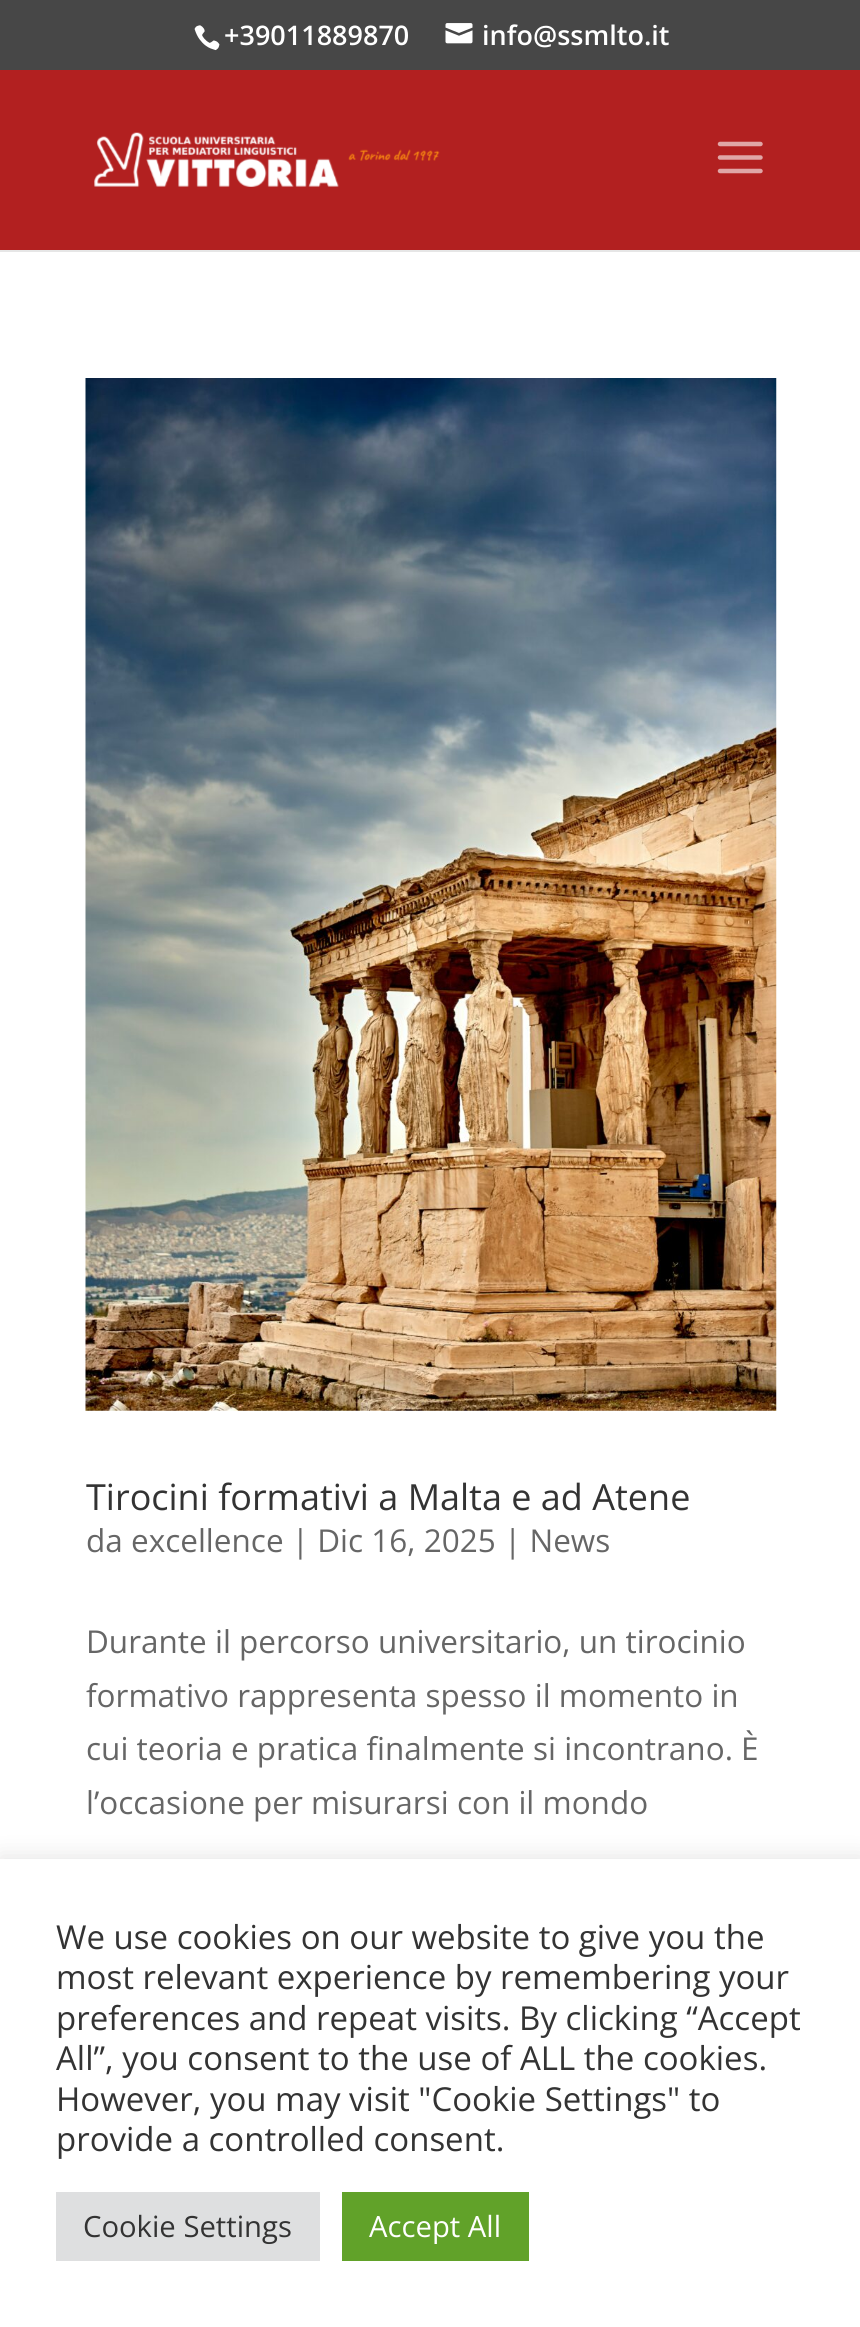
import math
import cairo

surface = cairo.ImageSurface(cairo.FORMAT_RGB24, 860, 2327)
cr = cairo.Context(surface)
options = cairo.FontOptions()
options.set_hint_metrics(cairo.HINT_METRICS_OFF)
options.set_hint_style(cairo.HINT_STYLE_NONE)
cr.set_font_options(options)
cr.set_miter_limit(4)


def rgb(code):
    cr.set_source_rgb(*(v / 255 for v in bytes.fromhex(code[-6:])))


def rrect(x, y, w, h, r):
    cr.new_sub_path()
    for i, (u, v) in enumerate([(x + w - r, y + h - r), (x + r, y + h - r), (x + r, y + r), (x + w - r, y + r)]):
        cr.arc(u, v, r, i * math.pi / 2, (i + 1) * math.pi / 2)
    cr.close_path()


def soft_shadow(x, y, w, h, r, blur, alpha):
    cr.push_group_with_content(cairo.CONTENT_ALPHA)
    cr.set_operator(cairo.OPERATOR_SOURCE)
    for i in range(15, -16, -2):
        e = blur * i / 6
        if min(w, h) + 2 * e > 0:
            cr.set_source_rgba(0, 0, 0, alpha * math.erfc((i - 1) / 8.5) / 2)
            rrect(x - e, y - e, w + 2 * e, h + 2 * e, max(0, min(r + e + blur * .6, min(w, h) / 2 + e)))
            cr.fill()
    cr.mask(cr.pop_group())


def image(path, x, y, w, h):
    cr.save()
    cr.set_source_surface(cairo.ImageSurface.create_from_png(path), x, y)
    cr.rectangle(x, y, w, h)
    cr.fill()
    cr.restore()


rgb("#ffffff")
cr.paint()
rgb("#474747")
cr.rectangle(0, 0, 860, 70)
cr.fill()
image("img/1.png", 194, 25, 26, 26)
image("img/2.png", 445, 23, 28, 21)
rgb("#e6e6e6")
cr.new_path()
cr.move_to(0, 250)
cr.line_to(0, 252)
cr.line_to(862, 252)
cr.line_to(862, 72)
cr.line_to(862, 250)
cr.close_path()
cr.fill()
rgb("#b22020")
cr.rectangle(0, 70, 860, 180)
cr.fill()
image("img/3.png", 94, 132, 346, 55)
image("img/4.png", 717, 141, 46, 33)
image("img/5.png", 85, 378, 692, 1033)
rgb("#acabab")
soft_shadow(0, 1856, 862, 471, 0, 11, 0.3)
for x, y, w, h, color in [
    (0, 1859, 860, 468, "#ffffff"),
    (56, 2192, 264, 69, "#dedfe0"),
    (342, 2192, 187, 69, "#61a229"),
]:
    rgb(color)
    cr.rectangle(x, y, w, h)
    cr.fill()
cr.select_font_face("Open Sans SemiBold")
cr.set_font_size(27)
rgb("#ffffff")
cr.move_to(224, 45)
cr.show_text("+39011889870")
cr.move_to(482, 45)
cr.show_text("info@ssmlto.it")
cr.select_font_face("Open Sans")
cr.set_font_size(36)
rgb("#333333")
cr.move_to(86, 1510)
cr.show_text("Tirocini formativi a Malta e ad Atene")
cr.set_font_size(31.5)
rgb("#666666")
for x, y, s in [
    (86, 1552, "da excellence | Dic 16, 2025 | News"),
    (86, 1653, "Durante il percorso universitario, un tirocinio"),
    (86, 1707, "formativo rappresenta spesso il momento in"),
    (86, 1760, "cui teoria e pratica finalmente si incontrano. È"),
    (86, 1814, "l’occasione per misurarsi con il mondo"),
]:
    cr.move_to(x, y)
    cr.show_text(s)
cr.set_font_size(33)
rgb("#333333")
for x, y, s in [
    (56, 1949, "We use cookies on our website to give you the"),
    (56, 1989, "most relevant experience by remembering your"),
    (56, 2030, "preferences and repeat visits. By clicking “Accept"),
    (56, 2070, "All”, you consent to the use of ALL the cookies."),
    (56, 2111, "However, you may visit \"Cookie Settings\" to"),
    (56, 2151, "provide a controlled consent."),
]:
    cr.move_to(x, y)
    cr.show_text(s)
cr.set_font_size(29.25)
cr.move_to(83, 2237)
cr.show_text("Cookie Settings")
rgb("#ffffff")
cr.move_to(369, 2237)
cr.show_text("Accept All")
surface.write_to_png("page.png")
